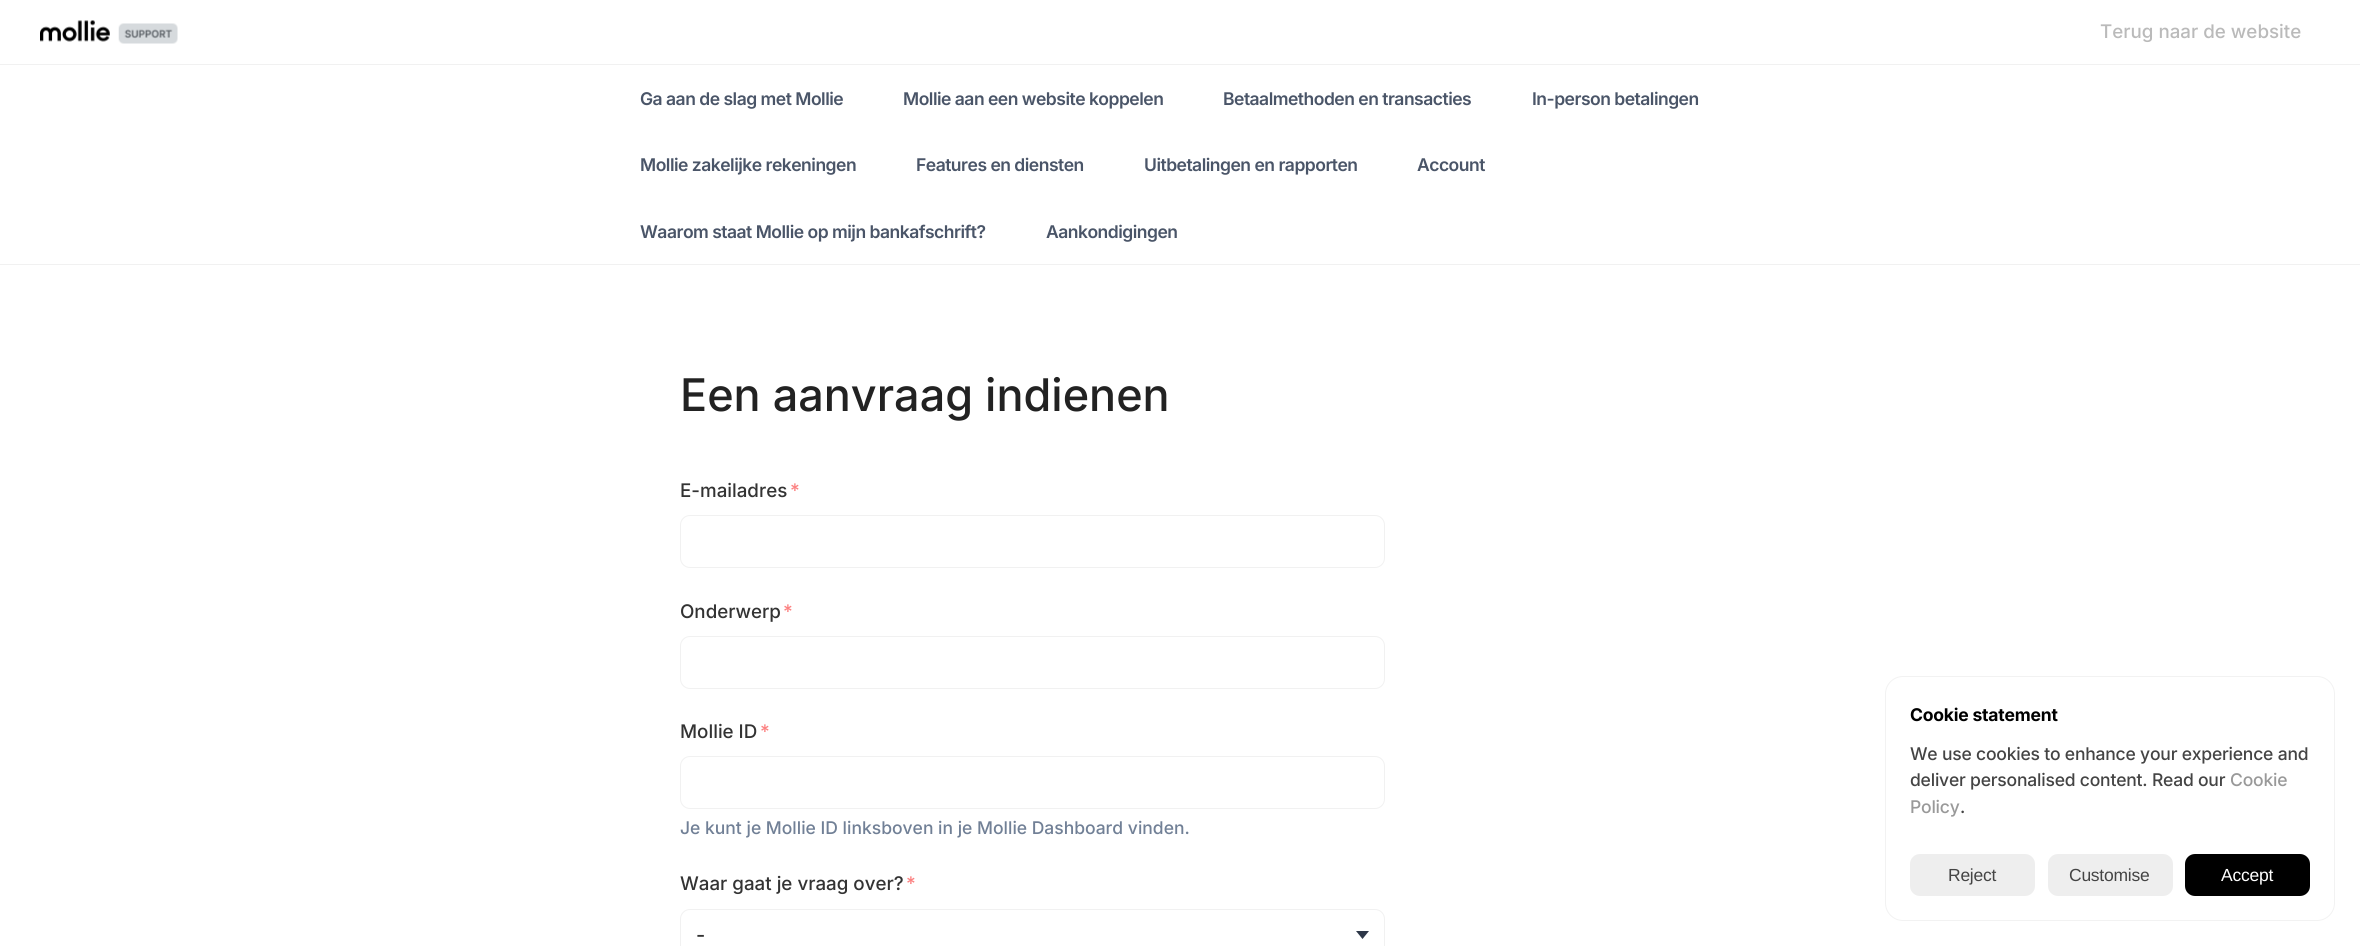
import math
import cairo

surface = cairo.ImageSurface(cairo.FORMAT_RGB24, 2360, 946)
cr = cairo.Context(surface)
options = cairo.FontOptions()
options.set_hint_metrics(cairo.HINT_METRICS_OFF)
options.set_hint_style(cairo.HINT_STYLE_NONE)
cr.set_font_options(options)
cr.set_miter_limit(4)


def rgb(code):
    cr.set_source_rgb(*(v / 255 for v in bytes.fromhex(code[-6:])))


def tracked(x, y, s, letter, word):
    cr.move_to(x, y)
    for ch in s:
        cr.show_text(ch)
        cr.rel_move_to(letter + word * (ch == ' '), 0)


def rrect(x, y, w, h, r):
    cr.new_sub_path()
    for i, (u, v) in enumerate([(x + w - r, y + h - r), (x + r, y + h - r), (x + r, y + r), (x + w - r, y + r)]):
        cr.arc(u, v, r, i * math.pi / 2, (i + 1) * math.pi / 2)
    cr.close_path()


def image(path, x, y, w, h):
    cr.save()
    cr.set_source_surface(cairo.ImageSurface.create_from_png(path), x, y)
    cr.rectangle(x, y, w, h)
    cr.fill()
    cr.restore()


rgb("#ffffff")
cr.paint()
rgb("#f1f1f1")
cr.rectangle(0, 64, 2360, 1)
cr.fill()
image("img/1.png", 40, 20, 138, 24)
cr.rectangle(0, 264, 2360, 1)
cr.fill()
rrect(680.5, 515.5, 704, 52, 9.5)
cr.set_line_width(1)
cr.stroke()
rrect(680.5, 636.5, 704, 52, 9.5)
cr.stroke()
rrect(680.5, 756.5, 704, 52, 9.5)
cr.stroke()
rgb("#2d3748")
cr.new_path()
cr.move_to(1356, 931)
cr.line_to(1369, 931)
cr.line_to(1362.5, 939)
cr.close_path()
cr.fill()
rrect(680.5, 909.5, 704, 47, 9.5)
rgb("#f1f1f1")
cr.stroke()
rrect(1885.5, 676.5, 449, 244, 17.5)
rgb("#f2f2f2")
cr.stroke()
rgb("#eeeeee")
rrect(1910, 854, 125, 42, 10)
cr.fill()
rrect(2048, 854, 125, 42, 10)
cr.fill()
rgb("#000000")
rrect(2185, 854, 125, 42, 10)
cr.fill()
cr.select_font_face("Inter Medium")
cr.set_font_size(18.75)
rgb("#bababa")
cr.move_to(2100, 38)
cr.show_text("Terug naar de website")
cr.select_font_face("Inter SemiBold")
cr.set_font_size(17.5)
rgb("#4a5568")
for x, y, s in [
    (640, 105, "Ga aan de slag met Mollie"),
    (903, 105, "Mollie aan een website koppelen"),
    (1223, 105, "Betaalmethoden en transacties"),
    (1532, 105, "In-person betalingen"),
    (640, 171, "Mollie zakelijke rekeningen"),
    (916, 171, "Features en diensten"),
    (1144, 171, "Uitbetalingen en rapporten"),
    (1417, 171, "Account"),
    (640, 238, "Waarom staat Mollie op mijn bankafschrift?"),
    (1046, 238, "Aankondigingen"),
]:
    tracked(x, y, s, -0.5, 0)
cr.select_font_face("Inter Medium")
cr.set_font_size(45)
rgb("#222222")
cr.move_to(680, 411)
cr.show_text("Een aanvraag indienen")
cr.set_font_size(18.75)
rgb("#333333")
cr.move_to(680, 497)
cr.show_text("E-mailadres")
rgb("#fc8181")
cr.move_to(790, 497)
cr.show_text("*")
rgb("#333333")
cr.move_to(680, 618)
cr.show_text("Onderwerp")
rgb("#fc8181")
cr.move_to(783, 618)
cr.show_text("*")
rgb("#333333")
cr.move_to(680, 738)
cr.show_text("Mollie ID")
rgb("#fc8181")
cr.move_to(760, 738)
cr.show_text("*")
cr.set_font_size(17.5)
rgb("#718096")
cr.move_to(680, 834)
cr.show_text("Je kunt je Mollie ID linksboven in je Mollie Dashboard vinden.")
cr.set_font_size(18.75)
rgb("#333333")
cr.move_to(680, 890)
cr.show_text("Waar gaat je vraag over?")
rgb("#fc8181")
cr.move_to(906, 890)
cr.show_text("*")
cr.set_font_size(20)
rgb("#333333")
cr.move_to(696, 942)
cr.show_text("-")
cr.select_font_face("Inter", cairo.FONT_SLANT_NORMAL, cairo.FONT_WEIGHT_BOLD)
cr.set_font_size(17.5)
rgb("#000000")
tracked(1910, 721, "Cookie statement", -0.2, 0)
cr.select_font_face("Inter Medium")
rgb("#444444")
tracked(1910, 760, "We use cookies to enhance your experience and", -0.2, 0)
tracked(1910, 786, "deliver personalised content. Read our", -0.2, 0)
rgb("#999999")
tracked(2230, 786, "Cookie", -0.2, 0)
tracked(1910, 813, "Policy", -0.2, 0)
rgb("#444444")
tracked(1960, 813, ".", -0.2, 0)
cr.select_font_face("Liberation Sans")
tracked(1948, 881, "Reject", -0.25, 0)
tracked(2069, 881, "Customise", -0.25, 0)
rgb("#ffffff")
tracked(2221, 881, "Accept", -0.25, 0)
surface.write_to_png("page.png")
